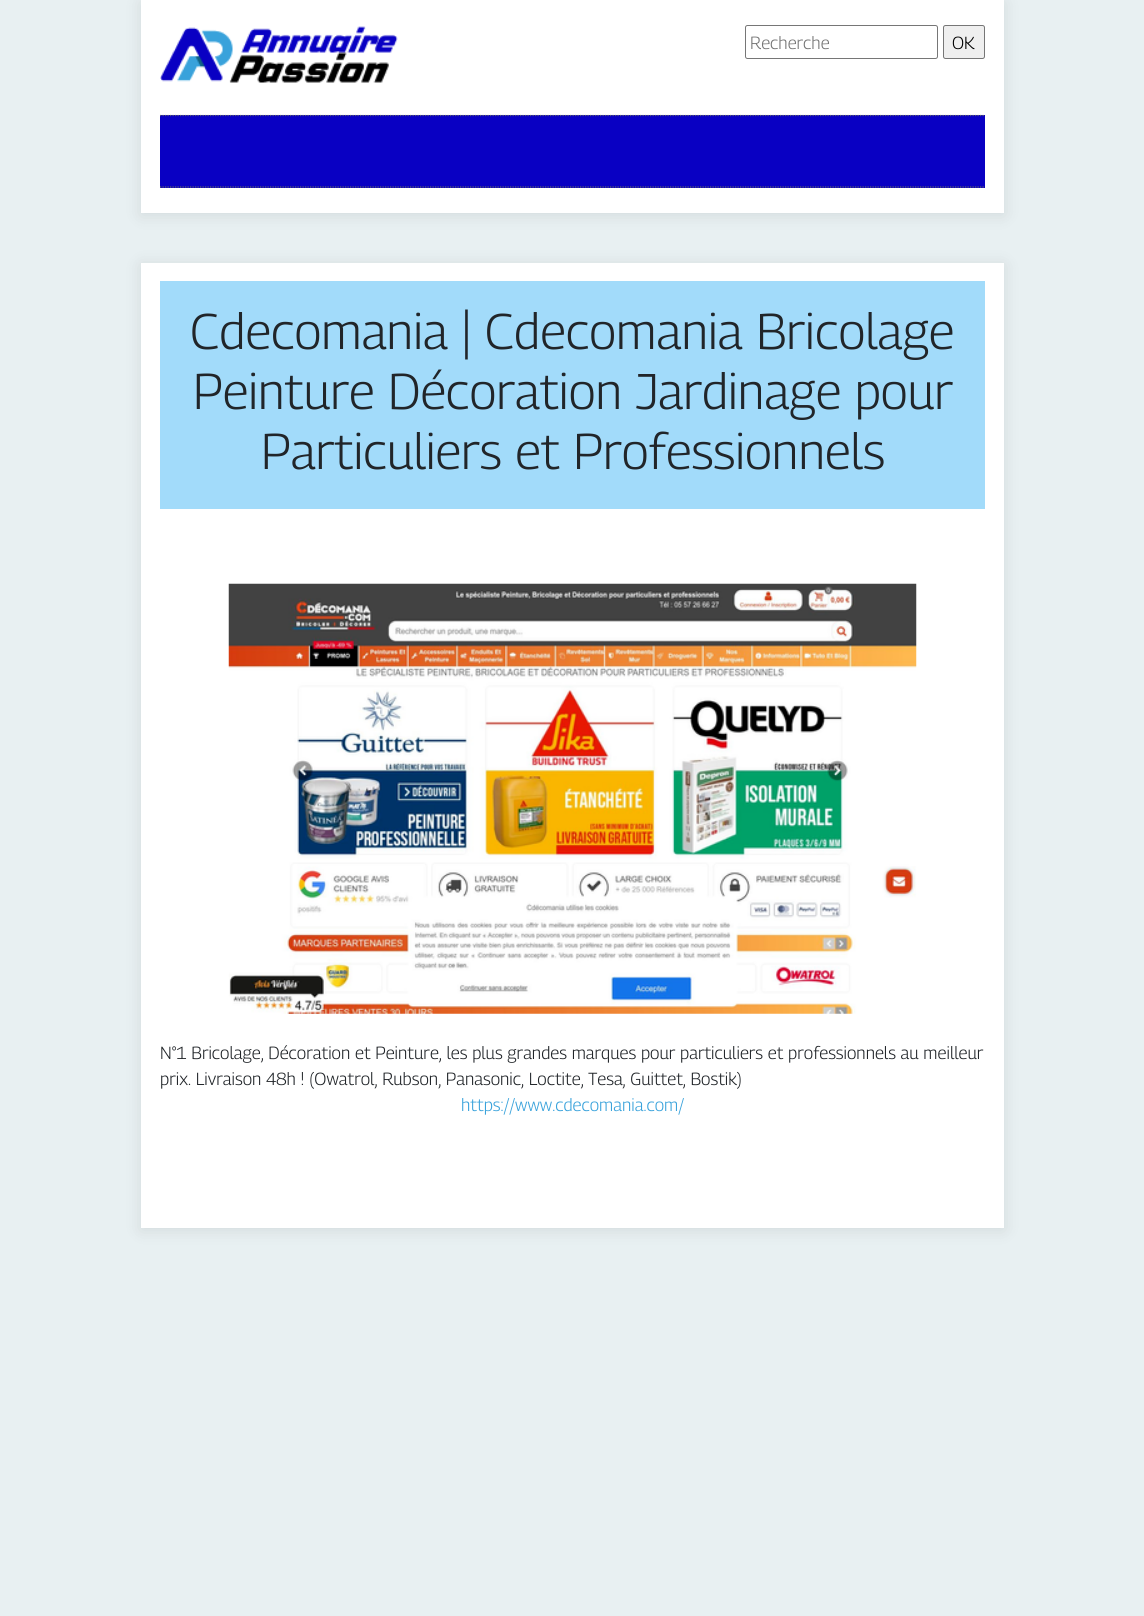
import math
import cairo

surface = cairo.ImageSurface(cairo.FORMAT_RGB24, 1144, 1616)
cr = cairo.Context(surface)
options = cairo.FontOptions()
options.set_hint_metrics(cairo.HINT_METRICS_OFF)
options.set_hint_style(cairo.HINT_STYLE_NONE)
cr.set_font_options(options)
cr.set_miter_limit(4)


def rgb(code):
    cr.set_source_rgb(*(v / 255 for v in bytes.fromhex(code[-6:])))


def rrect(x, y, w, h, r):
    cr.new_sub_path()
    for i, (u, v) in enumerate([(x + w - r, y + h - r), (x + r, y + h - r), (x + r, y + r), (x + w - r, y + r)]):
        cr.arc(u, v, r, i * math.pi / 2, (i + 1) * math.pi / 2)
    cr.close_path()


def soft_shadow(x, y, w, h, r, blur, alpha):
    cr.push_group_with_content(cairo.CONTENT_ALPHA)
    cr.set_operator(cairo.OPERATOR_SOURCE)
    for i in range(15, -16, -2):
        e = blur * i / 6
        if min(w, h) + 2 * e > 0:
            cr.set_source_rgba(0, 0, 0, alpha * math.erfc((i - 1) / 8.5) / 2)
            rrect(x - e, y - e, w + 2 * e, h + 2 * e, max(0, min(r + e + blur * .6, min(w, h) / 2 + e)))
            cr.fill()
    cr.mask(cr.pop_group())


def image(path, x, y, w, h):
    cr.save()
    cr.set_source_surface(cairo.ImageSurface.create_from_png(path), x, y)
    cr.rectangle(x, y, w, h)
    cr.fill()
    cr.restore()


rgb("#e8f0f2")
cr.paint()
rgb("#000000")
soft_shadow(141, 3, 863, 212, 0, 8, 0.1)
rgb("#ffffff")
cr.rectangle(141, 0, 863, 213)
cr.fill()
image("img/1.png", 160, 26, 238, 57)
rrect(745.5, 25.5, 192, 33, 2)
rgb("#767676")
cr.set_line_width(1)
cr.stroke()
rgb("#efefef")
rrect(943.5, 25.5, 41, 33, 2)
cr.fill_preserve()
rgb("#767676")
cr.stroke()
rgb("#0900c3")
cr.rectangle(160, 115, 825, 73)
cr.fill()
cr.new_path()
cr.move_to(160, 115.5)
cr.line_to(985, 115.5)
rgb("#666666")
cr.set_line_width(1.2)
cr.set_dash([1.25, 1.25])
cr.stroke()
cr.new_path()
cr.move_to(160, 187)
cr.line_to(985, 187)
cr.stroke()
rgb("#000000")
soft_shadow(141, 265, 863, 965, 0, 8, 0.1)
rgb("#ffffff")
cr.rectangle(141, 263, 863, 965)
cr.fill()
rgb("#a2dbfa")
cr.rectangle(160, 281, 825, 228)
cr.fill()
image("img/2.png", 228, 583, 689, 431)
cr.select_font_face("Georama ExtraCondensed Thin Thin")
cr.set_font_size(17.5)
rgb("#757575")
cr.move_to(750, 49)
cr.show_text("Recherche")
rgb("#000000")
cr.move_to(952, 49)
cr.show_text("OK")
cr.set_font_size(50)
rgb("#212529")
for x, y, s in [
    (190, 349, "Cdecomania | Cdecomania Bricolage"),
    (193, 409, "Peinture Décoration Jardinage pour"),
    (261, 469, "Particuliers et Professionnels"),
]:
    cr.move_to(x, y)
    cr.show_text(s)
cr.set_font_size(17.5)
cr.move_to(160, 1059)
cr.show_text("N°1 Bricolage, Décoration et Peinture, les plus grandes marques pour particuliers et professionnels au meilleur")
cr.move_to(160, 1085)
cr.show_text("prix. Livraison 48h ! (Owatrol, Rubson, Panasonic, Loctite, Tesa, Guittet, Bostik)")
rgb("#39a2db")
cr.move_to(461, 1111)
cr.show_text("https://www.cdecomania.com/")
surface.write_to_png("page.png")
